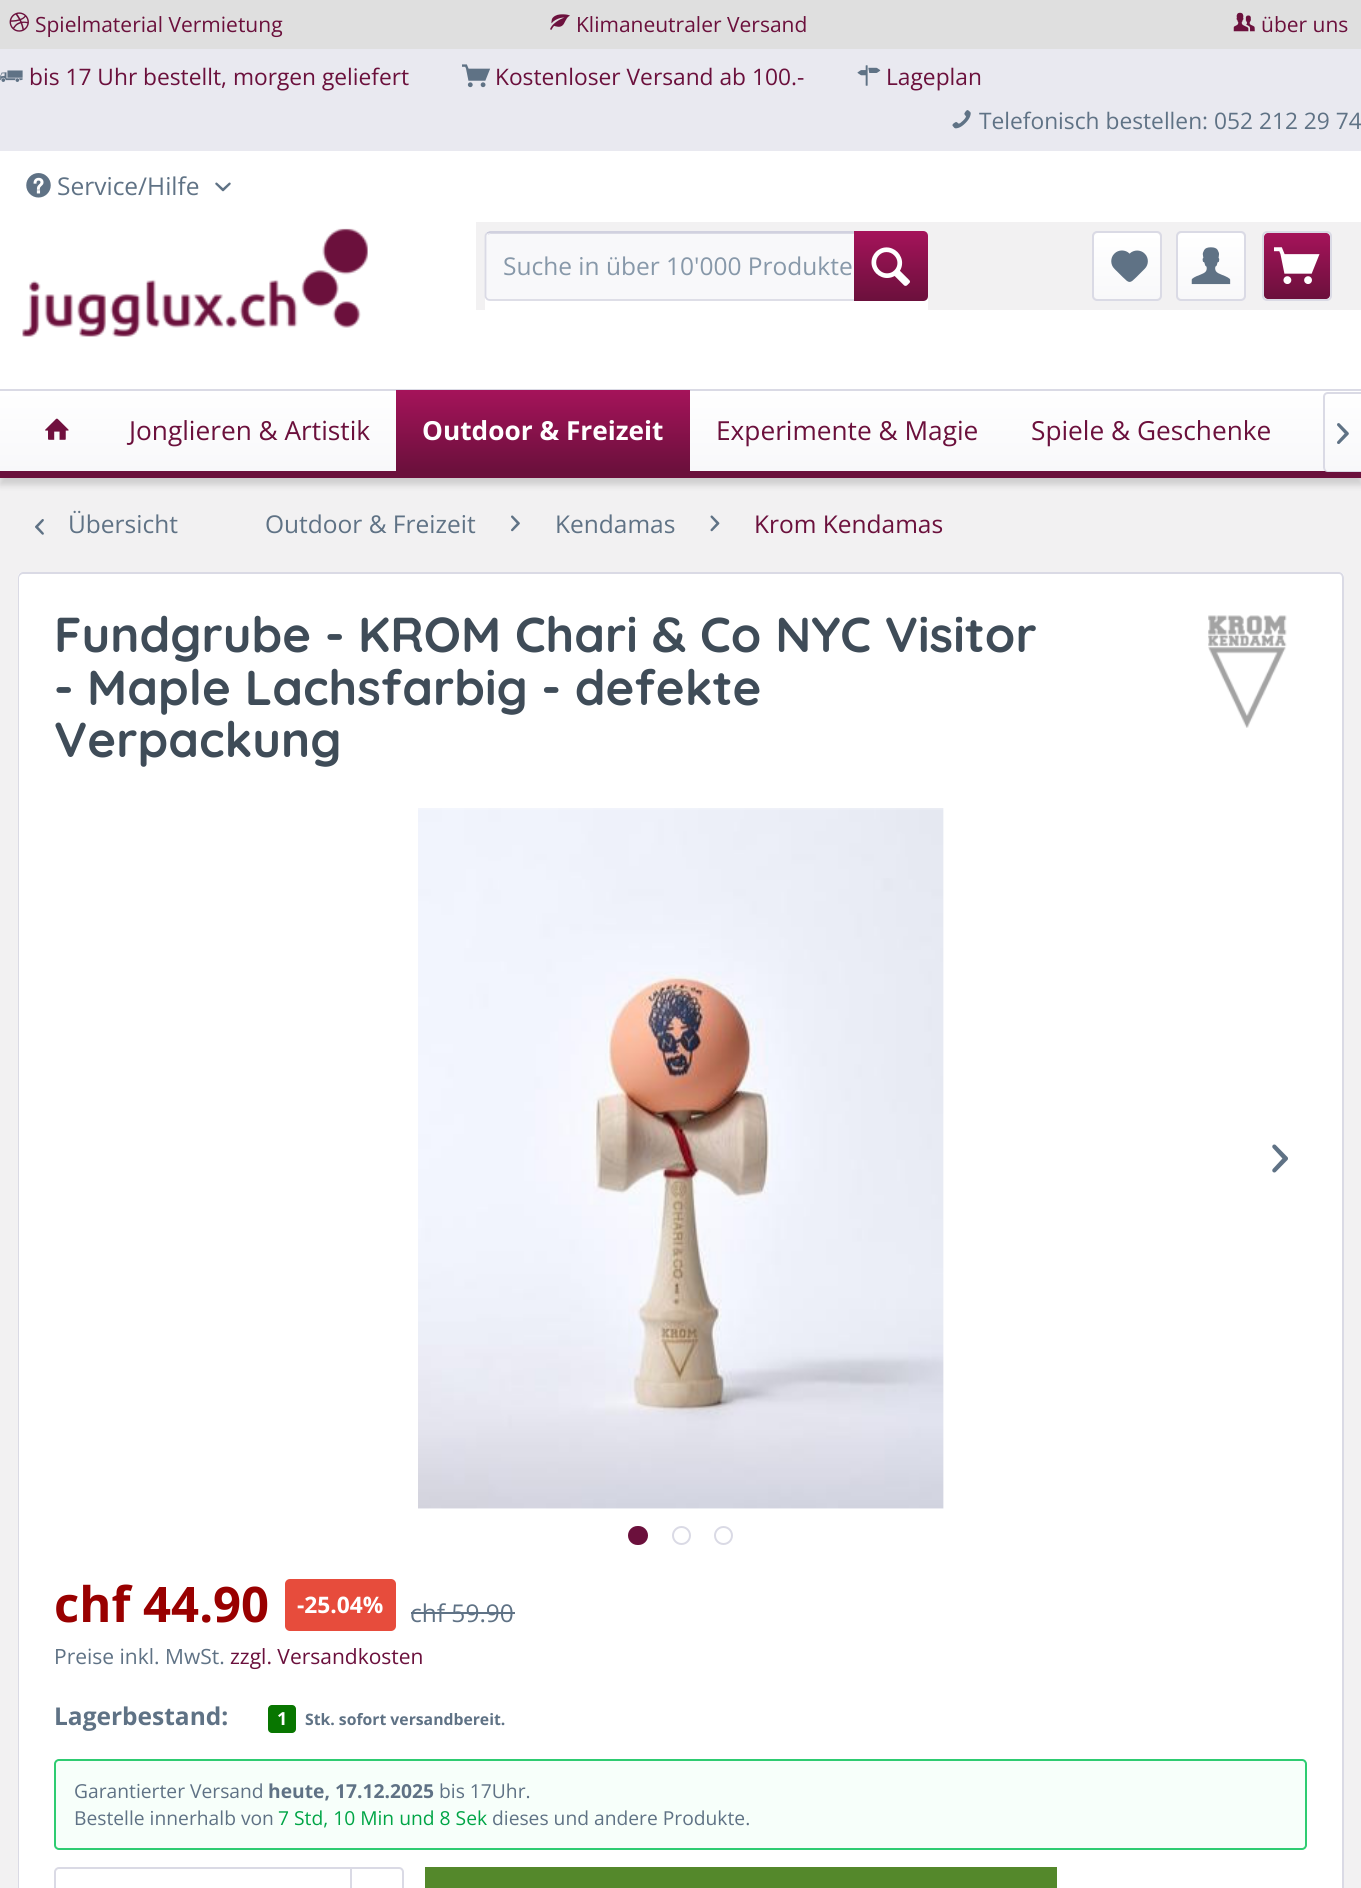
import math
import cairo

surface = cairo.ImageSurface(cairo.FORMAT_RGB24, 1361, 1888)
cr = cairo.Context(surface)
options = cairo.FontOptions()
options.set_hint_metrics(cairo.HINT_METRICS_OFF)
options.set_hint_style(cairo.HINT_STYLE_NONE)
cr.set_font_options(options)
cr.set_miter_limit(4)


def rgb(code):
    cr.set_source_rgb(*(v / 255 for v in bytes.fromhex(code[-6:])))


def rrect(x, y, w, h, r):
    cr.new_sub_path()
    for i, (u, v) in enumerate([(x + w - r, y + h - r), (x + r, y + h - r), (x + r, y + r), (x + w - r, y + r)]):
        cr.arc(u, v, r, i * math.pi / 2, (i + 1) * math.pi / 2)
    cr.close_path()


def soft_shadow(x, y, w, h, r, blur, alpha):
    cr.push_group_with_content(cairo.CONTENT_ALPHA)
    cr.set_operator(cairo.OPERATOR_SOURCE)
    for i in range(15, -16, -2):
        e = blur * i / 6
        if min(w, h) + 2 * e > 0:
            cr.set_source_rgba(0, 0, 0, alpha * math.erfc((i - 1) / 8.5) / 2)
            rrect(x - e, y - e, w + 2 * e, h + 2 * e, max(0, min(r + e + blur * .6, min(w, h) / 2 + e)))
            cr.fill()
    cr.mask(cr.pop_group())


def image(path, x, y, w, h):
    cr.save()
    cr.set_source_surface(cairo.ImageSurface.create_from_png(path), x, y)
    cr.rectangle(x, y, w, h)
    cr.fill()
    cr.restore()


rgb("#f2f1f2")
cr.paint()
rgb("#ffffff")
cr.rectangle(0, 151, 1361, 238)
cr.fill()
rgb("#dfdfdf")
cr.rectangle(0, 0, 1361, 49)
cr.fill()
image("img/1.png", 9, 12, 20, 20)
image("img/2.png", 550, 14, 20, 16)
image("img/3.png", 1233, 12, 22, 20)
rgb("#e9e9f0")
cr.rectangle(0, 49, 1361, 102)
cr.fill()
image("img/4.png", 0, 70, 23, 12)
image("img/5.png", 462, 64, 29, 24)
image("img/6.png", 857, 65, 24, 21)
image("img/7.png", 952, 110, 19, 19)
image("img/8.png", 26, 173, 25, 25)
image("img/9.png", 215, 182, 16, 10)
image("img/10.png", 22, 228, 346, 109)
rgb("#f2f1f2")
cr.rectangle(476, 222, 885, 88)
cr.fill()
rgb("#ffffff")
rrect(485, 231, 443, 103, 5)
cr.fill()
rgb("#f8f8fa")
rrect(485, 231, 443, 70, 5)
cr.fill()
rgb("#dadae5")
cr.new_path()
cr.move_to(490, 234)
cr.line_to(922, 234)
cr.curve_to(924, 234, 926, 236, 926, 238)
cr.line_to(926, 237)
cr.curve_to(926, 235, 924, 233, 922, 233)
cr.line_to(491, 233)
cr.curve_to(490, 233, 488, 234, 488, 235)
cr.close_path()
cr.fill()
cr.new_path()
cr.move_to(487, 233)
cr.line_to(490, 232)
cr.line_to(922, 232)
cr.line_to(925.5, 233)
rgb("#cbcbdb")
cr.set_line_width(1.8)
cr.stroke()
cr.new_path()
cr.move_to(925.5, 233)
cr.curve_to(926, 234, 926.5, 235, 926.5, 236)
cr.line_to(926.5, 296)
cr.curve_to(926.5, 297, 926, 298, 925.5, 299)
cr.curve_to(924.5, 299.5, 923.5, 300, 922, 300)
cr.line_to(490, 300)
cr.curve_to(489, 300, 487.5, 299.5, 487, 299)
cr.curve_to(486, 298, 485.5, 297, 485.5, 296)
cr.line_to(485.5, 236)
cr.curve_to(485.5, 235, 486, 234, 487, 233)
rgb("#dadae5")
cr.stroke()
gradient = cairo.LinearGradient(891, 231, 891, 301)
gradient.add_color_stop_rgba(0, 0.647, 0.075, 0.353, 1)
gradient.add_color_stop_rgba(1, 0.42, 0.063, 0.235, 1)
cr.set_source(gradient)
cr.new_path()
cr.move_to(854, 231)
cr.line_to(923, 231)
cr.curve_to(926, 231, 928, 233, 928, 236)
cr.line_to(928, 296)
cr.curve_to(928, 299, 926, 301, 923, 301)
cr.line_to(854, 301)
cr.close_path()
cr.fill()
image("img/11.png", 871, 247, 39, 39)
gradient = cairo.LinearGradient(1127, 233, 1127, 299)
gradient.add_color_stop_rgba(0, 1, 1, 1, 1)
gradient.add_color_stop_rgba(1, 0.973, 0.973, 0.98, 1)
cr.set_source(gradient)
rrect(1094, 233, 66, 66, 4)
cr.fill()
rrect(1093, 232, 68, 68, 4)
rgb("#dadae5")
cr.set_line_width(2)
cr.stroke()
image("img/12.png", 1111, 250, 37, 32)
gradient = cairo.LinearGradient(1211, 233, 1211, 299)
gradient.add_color_stop_rgba(0, 1, 1, 1, 1)
gradient.add_color_stop_rgba(1, 0.973, 0.973, 0.98, 1)
cr.set_source(gradient)
rrect(1178, 233, 66, 66, 4)
cr.fill()
rrect(1177, 232, 68, 68, 4)
rgb("#dadae5")
cr.stroke()
image("img/13.png", 1191, 247, 40, 38)
gradient = cairo.LinearGradient(1297, 233, 1297, 299)
gradient.add_color_stop_rgba(0, 0.647, 0.075, 0.353, 1)
gradient.add_color_stop_rgba(1, 0.42, 0.063, 0.235, 1)
cr.set_source(gradient)
rrect(1264, 233, 66, 66, 4)
cr.fill()
rrect(1263, 232, 68, 68, 4)
rgb("#dadae5")
cr.stroke()
image("img/14.png", 1274, 247, 46, 37)
rgb("#000000")
soft_shadow(0, 396, 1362, 89, 0, 3.5, 0.15)
gradient = cairo.LinearGradient(681, 390, 681, 471)
gradient.add_color_stop_rgba(0, 1, 1, 1, 1)
gradient.add_color_stop_rgba(1, 0.973, 0.973, 0.98, 1)
cr.set_source(gradient)
cr.rectangle(0, 391, 1361, 80)
cr.fill()
rgb("#dadae5")
cr.rectangle(0, 389, 1361, 2)
cr.fill()
rgb("#6b103c")
cr.rectangle(0, 471, 1361, 7)
cr.fill()
image("img/15.png", 45, 418, 24, 22)
gradient = cairo.LinearGradient(543, 390, 543, 471)
gradient.add_color_stop_rgba(0, 0.647, 0.075, 0.353, 1)
gradient.add_color_stop_rgba(1, 0.42, 0.063, 0.235, 1)
cr.set_source(gradient)
cr.rectangle(396, 390, 294, 81)
cr.fill()
rgb("#dadae5")
cr.set_fill_rule(cairo.FILL_RULE_EVEN_ODD)
cr.new_path()
cr.move_to(1328, 392)
cr.line_to(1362, 392)
cr.line_to(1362, 472)
cr.line_to(1328, 472)
cr.curve_to(1325, 472, 1323, 470, 1323, 467)
cr.line_to(1323, 397)
cr.curve_to(1323, 394, 1325, 392, 1328, 392)
cr.close_path()
cr.move_to(1328, 394)
cr.line_to(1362, 394)
cr.line_to(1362, 471)
cr.line_to(1328, 471)
cr.curve_to(1326, 471, 1325, 469, 1325, 467)
cr.line_to(1325, 397)
cr.curve_to(1325, 395, 1326, 394, 1328, 394)
cr.close_path()
cr.fill()
image("img/16.png", 1337, 423, 12, 21)
image("img/17.png", 35, 519, 9, 16)
image("img/18.png", 511, 515, 9, 17)
image("img/19.png", 710, 515, 10, 17)
rgb("#ffffff")
cr.new_path()
cr.move_to(23, 572)
cr.line_to(1339, 572)
cr.curve_to(1342, 572, 1344, 574, 1344, 577)
cr.line_to(1344, 809)
cr.line_to(18, 809)
cr.line_to(18, 577)
cr.curve_to(18, 574, 20, 572, 23, 572)
cr.close_path()
cr.fill()
rgb("#dadae5")
cr.new_path()
cr.move_to(23, 572)
cr.line_to(1339, 572)
cr.curve_to(1342, 572, 1344, 575, 1344, 578)
cr.line_to(1344, 808)
cr.line_to(18, 808)
cr.line_to(18, 578)
cr.curve_to(18, 575, 20, 572, 23, 572)
cr.close_path()
cr.move_to(23, 574)
cr.line_to(1339, 574)
cr.curve_to(1341, 574, 1342, 576, 1342, 578)
cr.line_to(1342, 808)
cr.line_to(19, 808)
cr.line_to(19, 578)
cr.curve_to(19, 576, 21, 574, 23, 574)
cr.close_path()
cr.fill()
image("img/20.png", 1208, 615, 79, 113)
rgb("#ffffff")
cr.rectangle(19, 809, 1323, 1079)
cr.fill()
rgb("#dadae5")
cr.new_path()
cr.move_to(18, 808)
cr.line_to(1344, 808)
cr.line_to(1344, 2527)
cr.curve_to(1344, 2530, 1342, 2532, 1339, 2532)
cr.line_to(23, 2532)
cr.curve_to(20, 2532, 18, 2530, 18, 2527)
cr.close_path()
cr.move_to(19, 808)
cr.line_to(1342, 808)
cr.line_to(1342, 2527)
cr.curve_to(1342, 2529, 1341, 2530, 1339, 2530)
cr.line_to(23, 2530)
cr.curve_to(21, 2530, 19, 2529, 19, 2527)
cr.close_path()
cr.fill()
image("img/21.png", 418, 808, 526, 701)
image("img/22.png", 1272, 1144, 16, 29)
rgb("#6b103c")
rrect(629, 1527, 18, 17, 8.5)
cr.fill_preserve()
cr.stroke()
cr.arc(681.5, 1535.5, 8.5, 0, 2 * math.pi)
rgb("#dadae5")
cr.stroke()
cr.arc(723.5, 1535.5, 8.5, 0, 2 * math.pi)
cr.stroke()
rgb("#e74c3c")
rrect(285, 1579, 111, 52, 5)
cr.fill()
rgb("#5f7285")
cr.rectangle(411, 1612, 104, 2)
cr.fill()
rgb("#087600")
rrect(268, 1705, 28, 28, 4)
cr.fill()
rgb("#f7fffa")
rrect(55, 1760, 1251, 89, 4)
cr.fill_preserve()
rgb("#2ecc71")
cr.stroke()
rrect(55, 1868, 348, 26, 4)
rgb("#dadae5")
cr.stroke()
cr.rectangle(350, 1869, 2, 19)
cr.fill()
rgb("#54882b")
cr.rectangle(425, 1867, 632, 21)
cr.fill()
cr.select_font_face("Open Sans")
cr.set_font_size(21)
rgb("#6b103c")
for x, y, s in [
    (35, 32, "Spielmaterial Vermietung"),
    (576, 32, "Klimaneutraler Versand"),
    (1261, 32, "über uns"),
]:
    cr.move_to(x, y)
    cr.show_text(s)
cr.set_font_size(22.75)
for x, y, s in [
    (29, 85, "bis 17 Uhr bestellt, morgen geliefert"),
    (495, 85, "Kostenloser Versand ab 100.-"),
    (886, 85, "Lageplan"),
]:
    cr.move_to(x, y)
    cr.show_text(s)
rgb("#5f7285")
cr.move_to(979, 129)
cr.show_text("Telefonisch bestellen: 052 212 29 74")
cr.set_font_size(24.5)
cr.move_to(57, 195)
cr.show_text("Service/Hilfe")
rgb("#8798a9")
cr.move_to(503, 275)
cr.show_text("Suche in über 10'000 Produkte")
cr.set_font_size(26.25)
rgb("#6b103c")
cr.move_to(129, 440)
cr.show_text("Jonglieren & Artistik")
cr.select_font_face("Open Sans", cairo.FONT_SLANT_NORMAL, cairo.FONT_WEIGHT_BOLD)
rgb("#ffffff")
cr.move_to(422, 440)
cr.show_text("Outdoor & Freizeit")
cr.select_font_face("Open Sans")
rgb("#6b103c")
cr.move_to(716, 440)
cr.show_text("Experimente & Magie")
cr.move_to(1031, 440)
cr.show_text("Spiele & Geschenke")
cr.set_font_size(24.5)
rgb("#5f7285")
for x, y, s in [
    (68, 533, "Übersicht"),
    (265, 533, "Outdoor & Freizeit"),
    (555, 533, "Kendamas"),
]:
    cr.move_to(x, y)
    cr.show_text(s)
rgb("#6b103c")
cr.move_to(754, 533)
cr.show_text("Krom Kendamas")
cr.select_font_face("Quicksand", cairo.FONT_SLANT_NORMAL, cairo.FONT_WEIGHT_BOLD)
cr.set_font_size(49)
rgb("#3f4c58")
for x, y, s in [
    (54, 652, "Fundgrube - KROM Chari & Co NYC Visitor"),
    (54, 705, "- Maple Lachsfarbig - defekte"),
    (54, 757, "Verpackung"),
]:
    cr.move_to(x, y)
    cr.show_text(s)
cr.select_font_face("Open Sans", cairo.FONT_SLANT_NORMAL, cairo.FONT_WEIGHT_BOLD)
rgb("#990000")
cr.move_to(54, 1622)
cr.show_text("chf 44.90")
cr.set_font_size(22.75)
rgb("#ffffff")
cr.move_to(297, 1613)
cr.show_text("-25.04%")
cr.select_font_face("Open Sans")
cr.set_font_size(24.5)
rgb("#5f7285")
cr.move_to(410, 1622)
cr.show_text("chf 59.90")
cr.set_font_size(21)
cr.move_to(54, 1664)
cr.show_text("Preise inkl. MwSt.")
rgb("#6b103c")
cr.move_to(230, 1664)
cr.show_text("zzgl. Versandkosten")
cr.select_font_face("Open Sans", cairo.FONT_SLANT_NORMAL, cairo.FONT_WEIGHT_BOLD)
cr.set_font_size(24.5)
rgb("#5f7285")
cr.move_to(54, 1725)
cr.show_text("Lagerbestand:")
cr.set_font_size(18)
rgb("#ffffff")
cr.move_to(277, 1725)
cr.show_text("1")
cr.set_font_size(15.75)
rgb("#5f7285")
cr.move_to(305, 1725)
cr.show_text("Stk. sofort versandbereit.")
cr.select_font_face("Open Sans")
cr.set_font_size(19.25)
cr.move_to(74, 1798)
cr.show_text("Garantierter Versand")
cr.select_font_face("Open Sans", cairo.FONT_SLANT_NORMAL, cairo.FONT_WEIGHT_BOLD)
cr.move_to(268, 1798)
cr.show_text("heute, 17.12.2025")
cr.select_font_face("Open Sans")
cr.move_to(439, 1798)
cr.show_text("bis 17Uhr.")
cr.move_to(74, 1825)
cr.show_text("Bestelle innerhalb von")
rgb("#00a546")
cr.move_to(278, 1825)
cr.show_text("7 Std, 10 Min und 8 Sek")
rgb("#5f7285")
cr.move_to(492, 1825)
cr.show_text("dieses und andere Produkte.")
surface.write_to_png("page.png")
